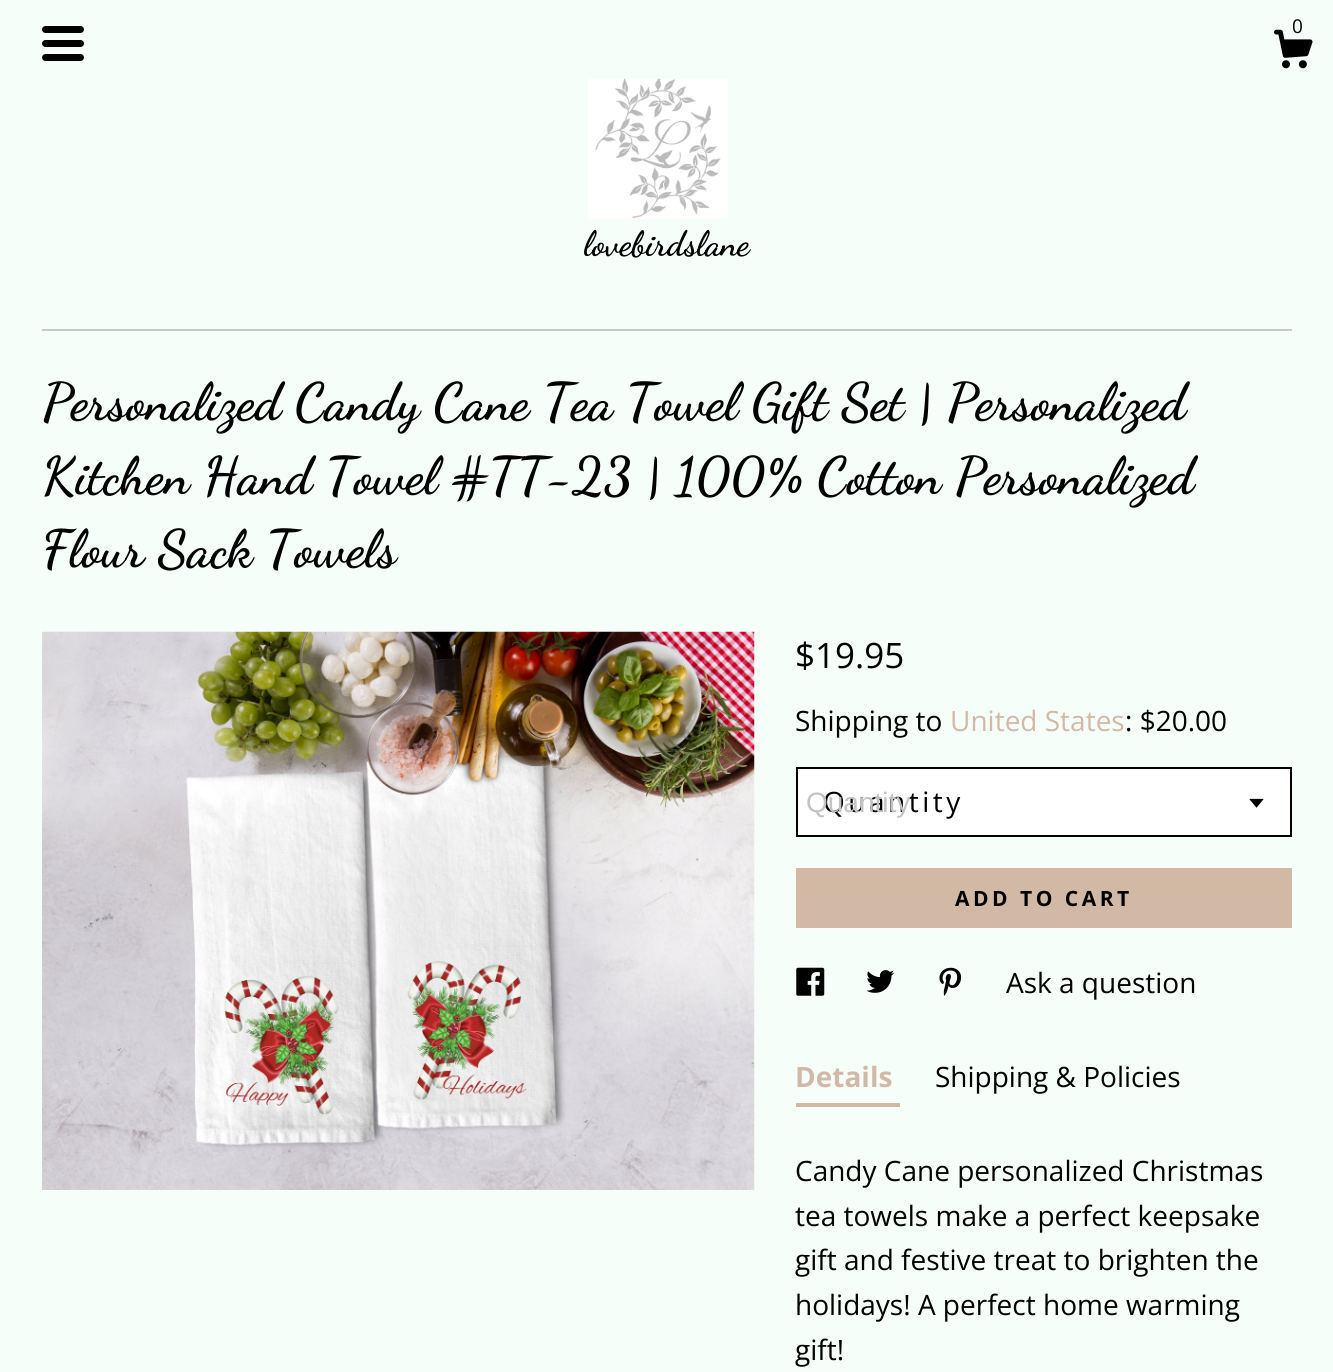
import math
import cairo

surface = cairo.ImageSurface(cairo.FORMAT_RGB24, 1333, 1372)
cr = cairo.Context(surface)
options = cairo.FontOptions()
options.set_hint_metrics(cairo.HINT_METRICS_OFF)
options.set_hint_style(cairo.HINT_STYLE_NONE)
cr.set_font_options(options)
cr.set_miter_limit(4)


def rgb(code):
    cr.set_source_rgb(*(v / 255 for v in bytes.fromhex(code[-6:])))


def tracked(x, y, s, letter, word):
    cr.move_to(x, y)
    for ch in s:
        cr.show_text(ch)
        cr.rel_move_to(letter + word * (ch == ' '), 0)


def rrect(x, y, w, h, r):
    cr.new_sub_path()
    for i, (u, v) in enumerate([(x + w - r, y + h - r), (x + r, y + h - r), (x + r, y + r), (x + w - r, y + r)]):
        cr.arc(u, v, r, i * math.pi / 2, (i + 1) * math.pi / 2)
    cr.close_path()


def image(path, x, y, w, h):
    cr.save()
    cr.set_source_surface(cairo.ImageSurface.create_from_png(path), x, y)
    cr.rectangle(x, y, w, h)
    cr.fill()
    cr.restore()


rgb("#f6fefa")
cr.paint()
rgb("#000000")
rrect(42, 26, 42, 7, 3.5)
cr.fill()
rrect(42, 40, 42, 7, 3.5)
cr.fill()
rrect(42, 54, 42, 7, 3.5)
cr.fill()
image("img/1.png", 1274, 29, 39, 40)
image("img/2.png", 588, 78, 140, 141)
rgb("#c5cbc8")
cr.rectangle(42, 329, 1250, 2)
cr.fill()
image("img/3.png", 42, 631, 713, 559)
rgb("#ffffff")
cr.rectangle(797, 768, 494, 68)
cr.fill_preserve()
rgb("#000000")
cr.stroke()
image("img/4.png", 1249, 798, 15, 10)
rgb("#d2b9a5")
cr.rectangle(796, 868, 496, 60)
cr.fill()
image("img/5.png", 796, 967, 29, 29)
image("img/6.png", 866, 970, 29, 23)
image("img/7.png", 939, 967, 23, 29)
cr.rectangle(796, 1103, 104, 4)
cr.fill()
cr.select_font_face("Open Sans")
cr.set_font_size(19)
rgb("#000000")
cr.move_to(1292, 33)
cr.show_text("0")
cr.select_font_face("Dancing Script", cairo.FONT_SLANT_NORMAL, cairo.FONT_WEIGHT_BOLD)
cr.set_font_size(35)
cr.move_to(584, 255)
cr.show_text("lovebirdslane")
cr.set_font_size(52.5)
for x, y, s in [
    (42, 419, "Personalized Candy Cane Tea Towel Gift Set | Personalized"),
    (42, 493, "Kitchen Hand Towel #TT-23 | 100% Cotton Personalized"),
    (42, 566, "Flour Sack Towels"),
]:
    cr.move_to(x, y)
    cr.show_text(s)
cr.select_font_face("Open Sans")
cr.set_font_size(35)
cr.move_to(795, 668)
cr.show_text("$19.95")
cr.set_font_size(28)
cr.move_to(795, 731)
cr.show_text("Shipping to")
rgb("#d2b9a5")
cr.move_to(950, 731)
cr.show_text("United States")
rgb("#000000")
cr.move_to(1125, 731)
cr.show_text(": $20.00")
tracked(823, 812, "Quantity", 3.5, 0)
cr.select_font_face("Liberation Sans")
rgb("#c3c3c3")
cr.move_to(806, 812)
cr.show_text("Quantity")
cr.select_font_face("Open Sans", cairo.FONT_SLANT_NORMAL, cairo.FONT_WEIGHT_BOLD)
cr.set_font_size(21)
rgb("#000000")
tracked(955, 906, "ADD TO CART", 3.5, 0)
cr.select_font_face("Open Sans")
cr.set_font_size(28)
cr.move_to(1006, 993)
cr.show_text("Ask a question")
cr.select_font_face("Open Sans", cairo.FONT_SLANT_NORMAL, cairo.FONT_WEIGHT_BOLD)
rgb("#d2b9a5")
cr.move_to(795, 1087)
cr.show_text("Details")
cr.select_font_face("Open Sans")
rgb("#000000")
for x, y, s in [
    (935, 1087, "Shipping & Policies"),
    (795, 1181, "Candy Cane personalized Christmas"),
    (795, 1226, "tea towels make a perfect keepsake"),
    (795, 1270, "gift and festive treat to brighten the"),
    (795, 1315, "holidays! A perfect home warming"),
    (795, 1360, "gift!"),
]:
    cr.move_to(x, y)
    cr.show_text(s)
surface.write_to_png("page.png")
